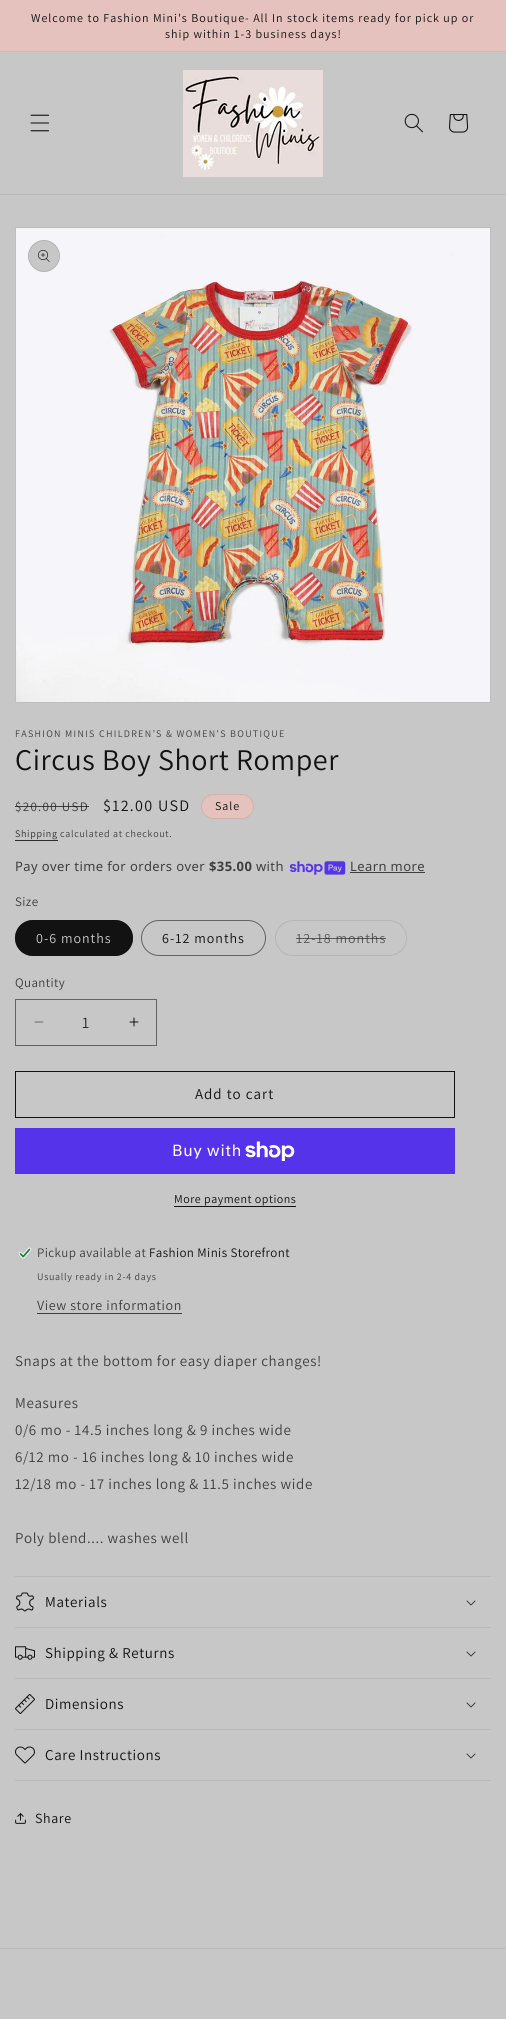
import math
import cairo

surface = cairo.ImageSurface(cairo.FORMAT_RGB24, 506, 2019)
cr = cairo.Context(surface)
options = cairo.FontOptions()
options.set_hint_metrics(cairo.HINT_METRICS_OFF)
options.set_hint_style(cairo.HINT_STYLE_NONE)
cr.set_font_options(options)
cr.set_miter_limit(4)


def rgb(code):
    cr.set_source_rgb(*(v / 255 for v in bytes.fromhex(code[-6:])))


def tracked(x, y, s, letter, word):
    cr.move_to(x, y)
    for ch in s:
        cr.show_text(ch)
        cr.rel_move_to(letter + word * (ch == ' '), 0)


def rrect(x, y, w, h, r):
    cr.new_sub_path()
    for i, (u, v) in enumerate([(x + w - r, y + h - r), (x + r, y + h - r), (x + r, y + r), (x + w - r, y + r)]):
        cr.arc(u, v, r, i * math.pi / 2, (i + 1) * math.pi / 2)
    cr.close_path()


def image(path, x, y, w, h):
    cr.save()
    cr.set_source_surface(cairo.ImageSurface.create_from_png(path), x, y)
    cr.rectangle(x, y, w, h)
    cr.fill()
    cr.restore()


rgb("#c7c7c7")
cr.paint()
for x, y, w, h, color in [
    (0, 0, 506, 51, "#e6c2bf"),
    (0, 51, 506, 1, "#d5b4b1"),
    (0, 194, 506, 1, "#b9b9b9"),
]:
    rgb(color)
    cr.rectangle(x, y, w, h)
    cr.fill()
image("img/1.png", 30, 114, 20, 18)
image("img/2.png", 183, 70, 140, 107)
image("img/3.png", 404, 113, 19, 20)
image("img/4.png", 449, 114, 20, 19)
cr.rectangle(15.5, 227.5, 475, 475)
rgb("#bebebe")
cr.set_line_width(1)
cr.stroke()
image("img/5.png", 16, 228, 474, 474)
rgb("#c7c7c7")
cr.arc(44, 256, 16, 0, 2 * math.pi)
cr.fill()
cr.arc(44, 256, 15.5, 0, 2 * math.pi)
cr.set_source_rgba(0.071, 0.071, 0.071, 0.1)
cr.stroke()
image("img/6.png", 38, 250, 12, 12)
rgb("#e6c2bf")
rrect(201, 794, 53, 25, 12.5)
cr.fill()
rrect(201.5, 794.5, 52, 24, 12)
cr.set_source_rgba(0.071, 0.071, 0.071, 0.1)
cr.stroke()
rgb("#2d2d2d")
cr.rectangle(15, 840, 43, 1)
cr.fill()
image("img/7.png", 289, 861, 57, 14)
rgb("#3f3f3f")
cr.rectangle(350, 872, 75, 1)
cr.fill()
rgb("#121212")
rrect(15, 920, 118, 36, 18)
cr.fill()
rrect(15.5, 920.5, 117, 35, 17.5)
cr.set_source_rgba(0.071, 0.071, 0.071, 0.55)
cr.stroke()
rrect(141.5, 920.5, 124, 35, 17.5)
rgb("#636363")
cr.stroke()
rrect(275.5, 920.5, 131, 35, 17.5)
rgb("#b5b5b5")
cr.stroke()
image("img/8.png", 34, 1021, 10, 2)
image("img/9.png", 129, 1017, 10, 10)
cr.rectangle(15.5, 999.5, 141, 46)
rgb("#636363")
cr.stroke()
cr.rectangle(15.5, 1071.5, 439, 46)
rgb("#121212")
cr.stroke()
rgb("#5433eb")
cr.rectangle(15, 1128, 440, 46)
cr.fill()
image("img/10.png", 245, 1141, 50, 20)
rgb("#121212")
cr.rectangle(174, 1206, 122, 1)
cr.fill()
image("img/11.png", 18, 1247, 14, 12)
for x, y, w, h, color in [
    (37, 1313, 145, 1, "#3f3f3f"),
    (15, 1576, 476, 1, "#b9b9b9"),
    (15, 1627, 476, 1, "#b9b9b9"),
]:
    rgb(color)
    cr.rectangle(x, y, w, h)
    cr.fill()
image("img/12.png", 16, 1592, 18, 20)
image("img/13.png", 466, 1600, 10, 6)
cr.rectangle(15, 1678, 476, 1)
cr.fill()
image("img/14.png", 15, 1646, 20, 14)
image("img/13.png", 466, 1651, 10, 6)
cr.rectangle(15, 1729, 476, 1)
cr.fill()
image("img/15.png", 15, 1694, 20, 20)
image("img/13.png", 466, 1702, 10, 6)
cr.rectangle(15, 1780, 476, 1)
cr.fill()
image("img/16.png", 15, 1746, 20, 18)
image("img/13.png", 466, 1753, 10, 6)
image("img/17.png", 15, 1813, 11, 11)
cr.rectangle(0, 1948, 506, 1)
cr.fill()
cr.select_font_face("Assistant")
cr.set_font_size(12)
rgb("#121212")
tracked(31, 22, "Welcome to Fashion Mini's Boutique- All In stock items ready for pick up or", 1, 0)
tracked(165, 38, "ship within 1-3 business days!", 1, 0)
cr.set_font_size(10)
rgb("#3f3f3f")
tracked(15, 737, "FASHION MINIS CHILDREN’S & WOMEN'S BOUTIQUE", 1.3, 0)
cr.set_font_size(30)
rgb("#121212")
tracked(15, 770, "Circus Boy Short Romper", 0.6, 0)
cr.set_font_size(13)
rgb("#3f3f3f")
tracked(15, 811, "$20.00 USD", 1.3, 0)
cr.set_source_rgba(0.071, 0.071, 0.071, 0.75)
cr.rectangle(15, 806, 74, 1)
cr.fill()
cr.set_font_size(16)
rgb("#121212")
tracked(103, 811, "$12.00 USD", 1.3, 0)
cr.set_font_size(12)
tracked(215, 810, "Sale", 1, 0)
cr.set_font_size(10)
rgb("#2d2d2d")
tracked(15, 837, "Shipping", 0.7, 0)
rgb("#3f3f3f")
tracked(60, 837, "calculated at checkout.", 0.7, 0)
cr.select_font_face("Noto Sans")
cr.set_font_size(13)
tracked(15, 871, "Pay over time for orders over", 0.4, 0)
cr.select_font_face("Noto Sans", cairo.FONT_SLANT_NORMAL, cairo.FONT_WEIGHT_BOLD)
tracked(209, 871, "$35.00", 0.4, 0)
cr.select_font_face("Noto Sans")
tracked(256, 871, "with", 0.4, 0)
tracked(350, 871, "Learn more", 0.4, 0)
cr.select_font_face("Assistant")
tracked(15, 906, "Size", 0.4, 0)
cr.set_font_size(14)
rgb("#c7c7c7")
tracked(36, 943, "0-6 months", 1, 0)
rgb("#121212")
tracked(162, 943, "6-12 months", 1, 0)
rgb("#5a5a5a")
tracked(296, 943, "12-18 months", 1, 0)
cr.set_source_rgba(0.071, 0.071, 0.071, 0.6)
cr.rectangle(296, 938, 90, 1)
cr.fill()
cr.set_font_size(13)
rgb("#3f3f3f")
tracked(15, 987, "Quantity", 0.4, 0)
cr.set_font_size(16)
rgb("#2d2d2d")
cr.move_to(82, 1028)
cr.show_text("1")
cr.set_font_size(15)
rgb("#121212")
tracked(195, 1099, "Add to cart", 1, 0)
cr.select_font_face("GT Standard")
cr.set_font_size(16)
rgb("#ffffff")
tracked(172, 1156, "Buy with", 0.6, 0)
cr.select_font_face("Assistant")
cr.set_font_size(12)
rgb("#121212")
tracked(174, 1203, "More payment options", 0.5, 0)
cr.set_font_size(13)
rgb("#3f3f3f")
tracked(37, 1257, "Pickup available at", 0.4, 0)
rgb("#121212")
tracked(149, 1257, "Fashion Minis Storefront", 0.4, 0)
cr.set_font_size(10)
rgb("#3f3f3f")
tracked(37, 1280, "Usually ready in 2-4 days", 0.7, 0)
cr.set_font_size(14)
tracked(37, 1310, "View store information", 0.6, 0)
cr.set_font_size(15)
for x, y, s in [
    (15, 1366, "Snaps at the bottom for easy diaper changes!"),
    (15, 1408, "Measures"),
    (15, 1435, "0/6 mo - 14.5 inches long & 9 inches wide"),
    (15, 1462, "6/12 mo - 16 inches long & 10 inches wide"),
    (15, 1489, "12/18 mo - 17 inches long & 11.5 inches wide"),
    (15, 1543, "Poly blend.... washes well"),
]:
    tracked(x, y, s, 0.6, 0)
rgb("#121212")
for x, y, s in [
    (45, 1607, "Materials"),
    (45, 1658, "Shipping & Returns"),
    (45, 1709, "Dimensions"),
    (45, 1760, "Care Instructions"),
]:
    tracked(x, y, s, 0.6, 0)
cr.set_font_size(14)
tracked(35, 1823, "Share", 0.6, 0)
surface.write_to_png("page.png")
